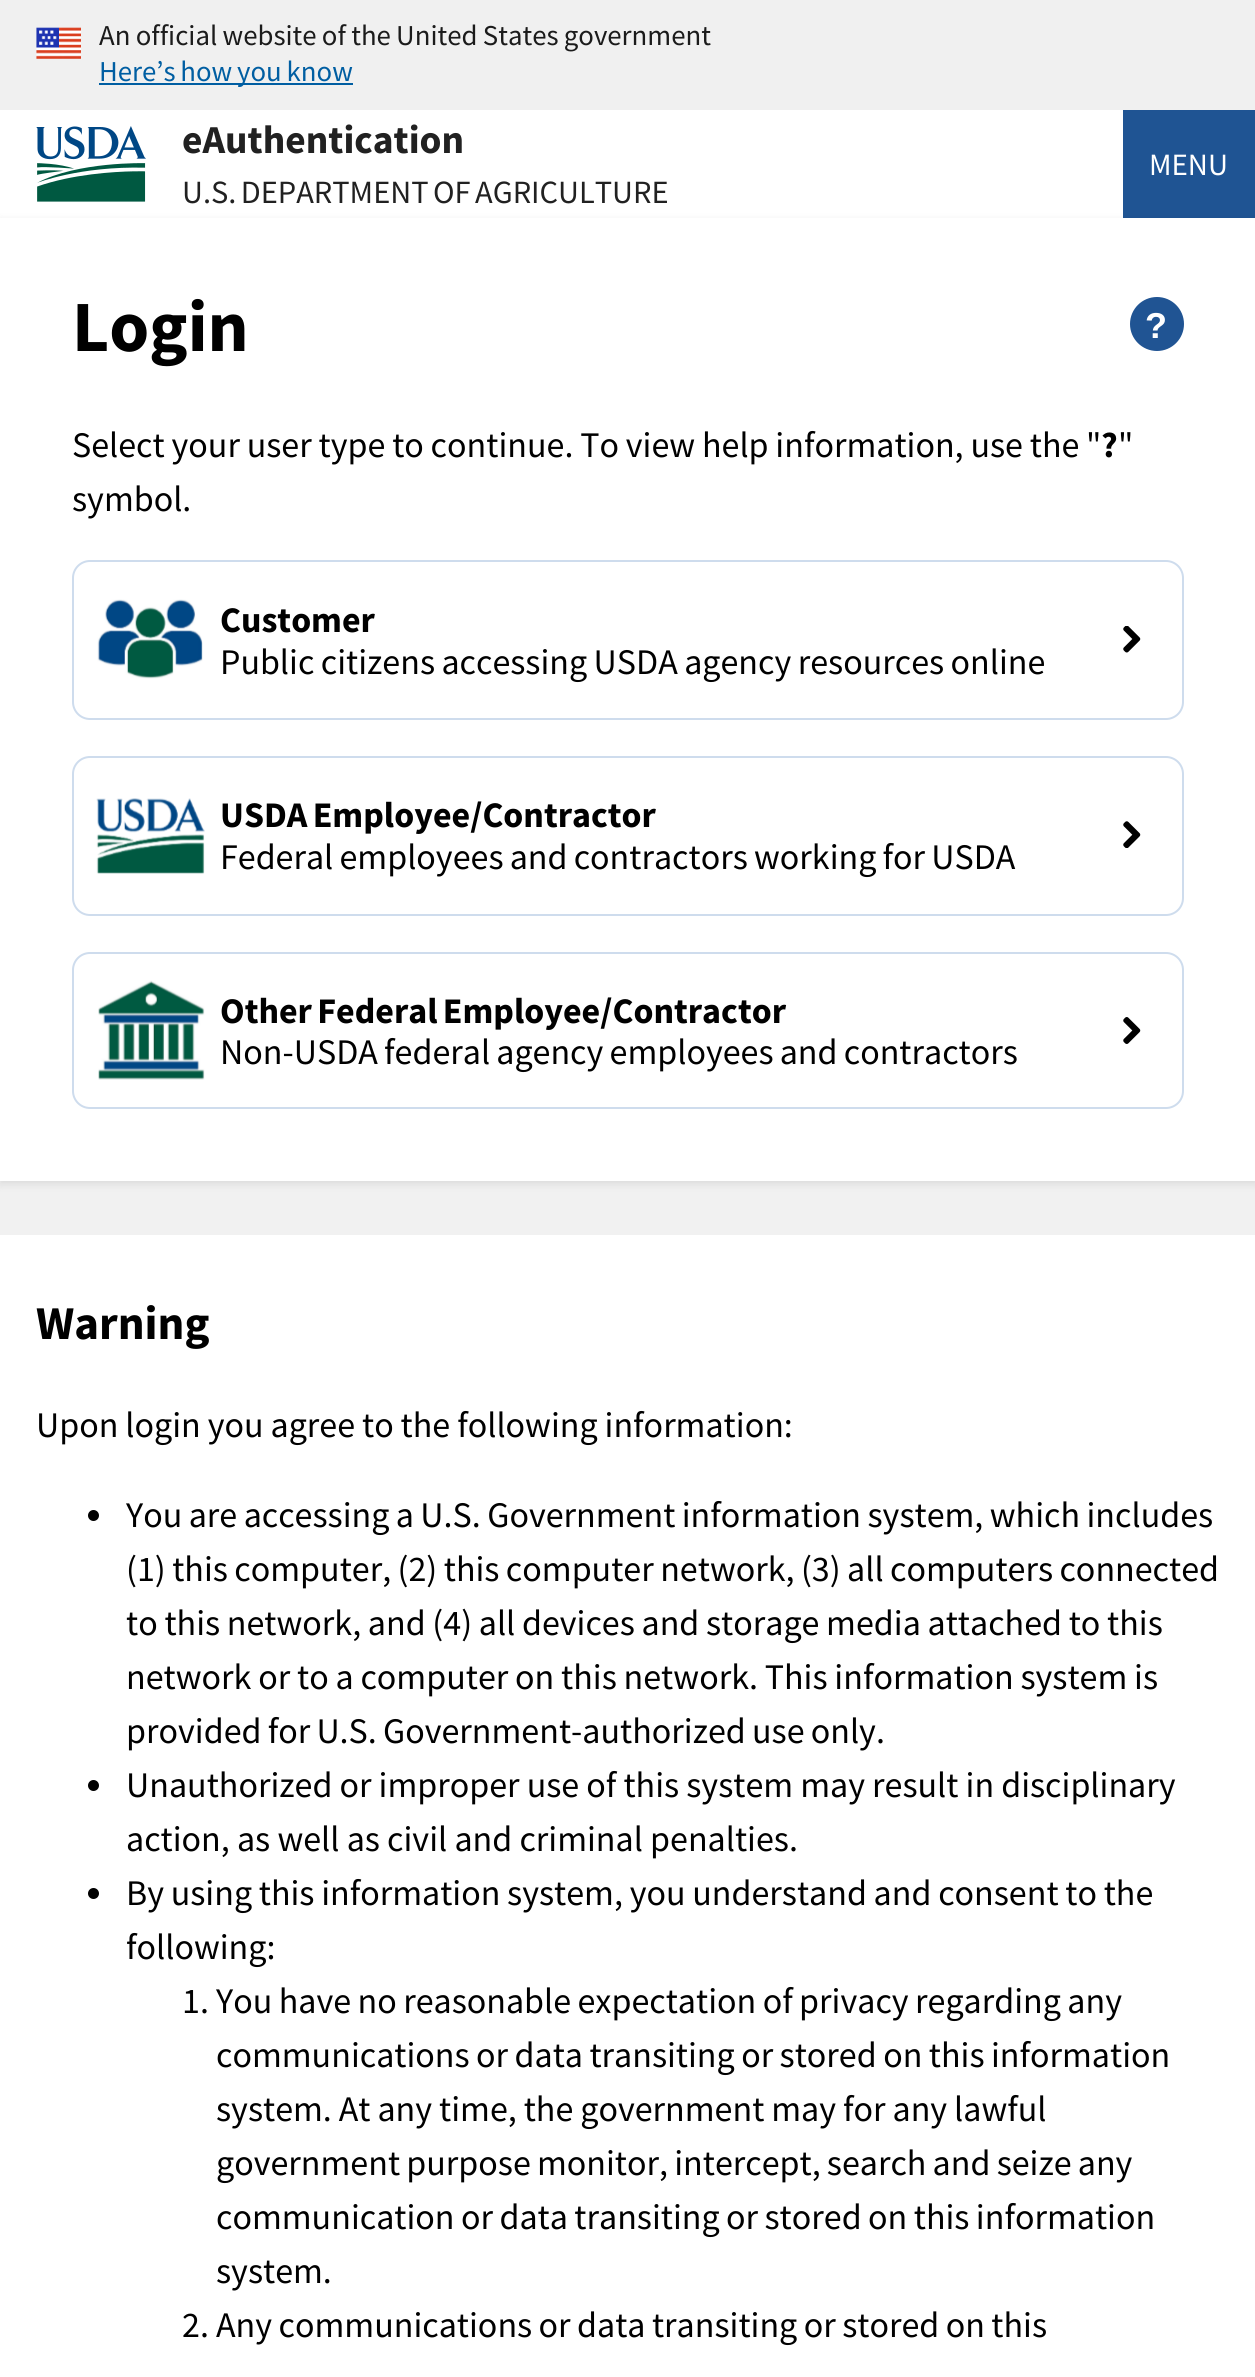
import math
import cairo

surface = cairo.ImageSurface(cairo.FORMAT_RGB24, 1255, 2377)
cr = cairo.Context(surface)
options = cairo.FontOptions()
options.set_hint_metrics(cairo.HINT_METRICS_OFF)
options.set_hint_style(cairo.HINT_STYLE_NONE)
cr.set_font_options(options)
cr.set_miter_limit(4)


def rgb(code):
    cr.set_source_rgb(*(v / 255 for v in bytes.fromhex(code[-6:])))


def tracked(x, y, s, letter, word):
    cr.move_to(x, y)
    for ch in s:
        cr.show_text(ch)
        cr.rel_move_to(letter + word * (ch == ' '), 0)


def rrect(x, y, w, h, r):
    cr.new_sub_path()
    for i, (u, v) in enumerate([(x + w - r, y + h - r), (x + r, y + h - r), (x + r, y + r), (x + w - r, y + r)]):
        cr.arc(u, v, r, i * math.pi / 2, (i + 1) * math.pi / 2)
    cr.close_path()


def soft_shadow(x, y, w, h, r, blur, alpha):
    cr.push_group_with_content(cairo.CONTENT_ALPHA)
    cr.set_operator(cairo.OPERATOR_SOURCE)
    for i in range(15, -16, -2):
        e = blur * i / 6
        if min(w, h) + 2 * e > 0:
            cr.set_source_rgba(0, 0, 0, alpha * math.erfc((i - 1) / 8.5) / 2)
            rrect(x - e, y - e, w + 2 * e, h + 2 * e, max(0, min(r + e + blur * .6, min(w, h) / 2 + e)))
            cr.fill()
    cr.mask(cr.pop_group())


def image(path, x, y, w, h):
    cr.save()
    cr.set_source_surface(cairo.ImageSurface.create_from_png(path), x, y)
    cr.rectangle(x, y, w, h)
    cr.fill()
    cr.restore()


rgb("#ffffff")
cr.paint()
rgb("#f0f0f0")
cr.rectangle(0, 0, 1255, 110)
cr.fill()
image("img/1.png", 36, 27, 45, 32)
rgb("#005ea2")
cr.rectangle(99, 83, 254, 2)
cr.fill()
image("img/2.png", 36, 126, 110, 76)
rgb("#1f5493")
cr.rectangle(1123, 110, 132, 108)
cr.fill()
rgb("#f1f1f1")
cr.rectangle(0, 1181, 1255, 54)
cr.fill()
rgb("#000000")
soft_shadow(0, 221, 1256, 963, 0, 4.5, 0.1)
rgb("#ffffff")
cr.rectangle(0, 218, 1255, 963)
cr.fill()
rgb("#205493")
cr.arc(1157, 324, 24.5, 0, 2 * math.pi)
cr.fill_preserve()
cr.set_line_width(5)
cr.stroke()
image("img/3.png", 1123, 626, 18, 27)
rrect(73, 561, 1110, 158, 17)
rgb("#cedced")
cr.set_line_width(2)
cr.stroke()
image("img/4.png", 97, 599, 106, 80)
image("img/5.png", 1123, 821, 18, 27)
rrect(73, 757, 1110, 158, 17)
cr.stroke()
image("img/6.png", 96, 798, 109, 76)
image("img/7.png", 1123, 1017, 18, 27)
rrect(73, 953, 1110, 155, 17)
cr.stroke()
image("img/8.png", 98, 980, 107, 100)
rgb("#000000")
cr.arc(93.5, 1515.5, 5.5, 0, 2 * math.pi)
cr.fill()
cr.arc(93.5, 1785.5, 5.5, 0, 2 * math.pi)
cr.fill()
cr.arc(93.5, 1893.5, 5.5, 0, 2 * math.pi)
cr.fill()
cr.select_font_face("Source Sans Pro")
cr.set_font_size(28.8)
rgb("#1b1b1b")
tracked(99, 45, "An official website of the United States government", 0, -0.5)
rgb("#005ea2")
tracked(99, 81, "Here’s how you know", 0, -1)
cr.select_font_face("Source Sans Pro", cairo.FONT_SLANT_NORMAL, cairo.FONT_WEIGHT_BOLD)
cr.set_font_size(39.5)
rgb("#212121")
cr.move_to(182, 153)
cr.show_text("eAuthentication")
cr.select_font_face("Source Sans Pro")
cr.set_font_size(32.4)
tracked(182, 203, "U.S. DEPARTMENT OF AGRICULTURE", 0, -2)
cr.set_font_size(31)
rgb("#ffffff")
cr.move_to(1149, 175)
cr.show_text("MENU")
cr.select_font_face("Source Sans Pro", cairo.FONT_SLANT_NORMAL, cairo.FONT_WEIGHT_BOLD)
cr.set_font_size(72)
rgb("#000000")
cr.move_to(72, 351)
cr.show_text("Login")
cr.select_font_face("Liberation Sans", cairo.FONT_SLANT_NORMAL, cairo.FONT_WEIGHT_BOLD)
cr.set_font_size(36)
rgb("#ffffff")
cr.move_to(1145, 338)
cr.show_text("?")
cr.select_font_face("Source Sans Pro")
rgb("#000000")
tracked(72, 457, "Select your user type to continue. To view help information, use the \"", 0, -0.4)
cr.select_font_face("Source Sans Pro", cairo.FONT_SLANT_NORMAL, cairo.FONT_WEIGHT_BOLD)
cr.move_to(1101, 457)
cr.show_text("?")
cr.select_font_face("Source Sans Pro")
cr.move_to(1118, 457)
cr.show_text("\"")
cr.move_to(72, 511)
cr.show_text("symbol.")
cr.select_font_face("Source Sans Pro", cairo.FONT_SLANT_NORMAL, cairo.FONT_WEIGHT_BOLD)
cr.move_to(220, 632)
cr.show_text("Customer")
cr.select_font_face("Source Sans Pro")
tracked(220, 674, "Public citizens accessing USDA agency resources online", 0, -0.75)
cr.select_font_face("Source Sans Pro", cairo.FONT_SLANT_NORMAL, cairo.FONT_WEIGHT_BOLD)
tracked(220, 827, "USDA Employee/Contractor", 0, -2)
cr.select_font_face("Source Sans Pro")
tracked(220, 869, "Federal employees and contractors working for USDA", 0, -1)
cr.select_font_face("Source Sans Pro", cairo.FONT_SLANT_NORMAL, cairo.FONT_WEIGHT_BOLD)
tracked(220, 1023, "Other Federal Employee/Contractor", 0, -2)
cr.select_font_face("Source Sans Pro")
tracked(220, 1064, "Non-USDA federal agency employees and contractors", 0, -1)
cr.select_font_face("Source Sans Pro", cairo.FONT_SLANT_NORMAL, cairo.FONT_WEIGHT_BOLD)
cr.set_font_size(47)
cr.move_to(36, 1339)
cr.show_text("Warning")
cr.select_font_face("Source Sans Pro")
cr.set_font_size(36)
tracked(36, 1437, "Upon login you agree to the following information:", 0, -0.25)
tracked(126, 1527, "You are accessing a U.S. Government information system, which includes", 0, -0.75)
tracked(126, 1581, "(1) this computer, (2) this computer network, (3) all computers connected", 0, -0.75)
tracked(126, 1635, "to this network, and (4) all devices and storage media attached to this", 0, -0.5)
tracked(126, 1689, "network or to a computer on this network. This information system is", 0, -0.4)
tracked(126, 1743, "provided for U.S. Government-authorized use only.", 0, -1)
tracked(126, 1797, "Unauthorized or improper use of this system may result in disciplinary", 0, -0.1)
cr.move_to(126, 1851)
cr.show_text("action, as well as civil and criminal penalties.")
tracked(126, 1905, "By using this information system, you understand and consent to the", 0, -0.5)
cr.move_to(126, 1959)
cr.show_text("following:")
cr.move_to(182, 2013)
cr.show_text("1.")
tracked(216, 2013, "You have no reasonable expectation of privacy regarding any", 0, -0.75)
tracked(216, 2067, "communications or data transiting or stored on this information", 0, -0.75)
tracked(216, 2121, "system. At any time, the government may for any lawful", 0, -0.25)
tracked(216, 2175, "government purpose monitor, intercept, search and seize any", 0, -1)
tracked(216, 2229, "communication or data transiting or stored on this information", 0, -0.75)
cr.move_to(216, 2283)
cr.show_text("system.")
cr.move_to(182, 2337)
cr.show_text("2.")
tracked(216, 2337, "Any communications or data transiting or stored on this", 0, -0.75)
surface.write_to_png("page.png")
